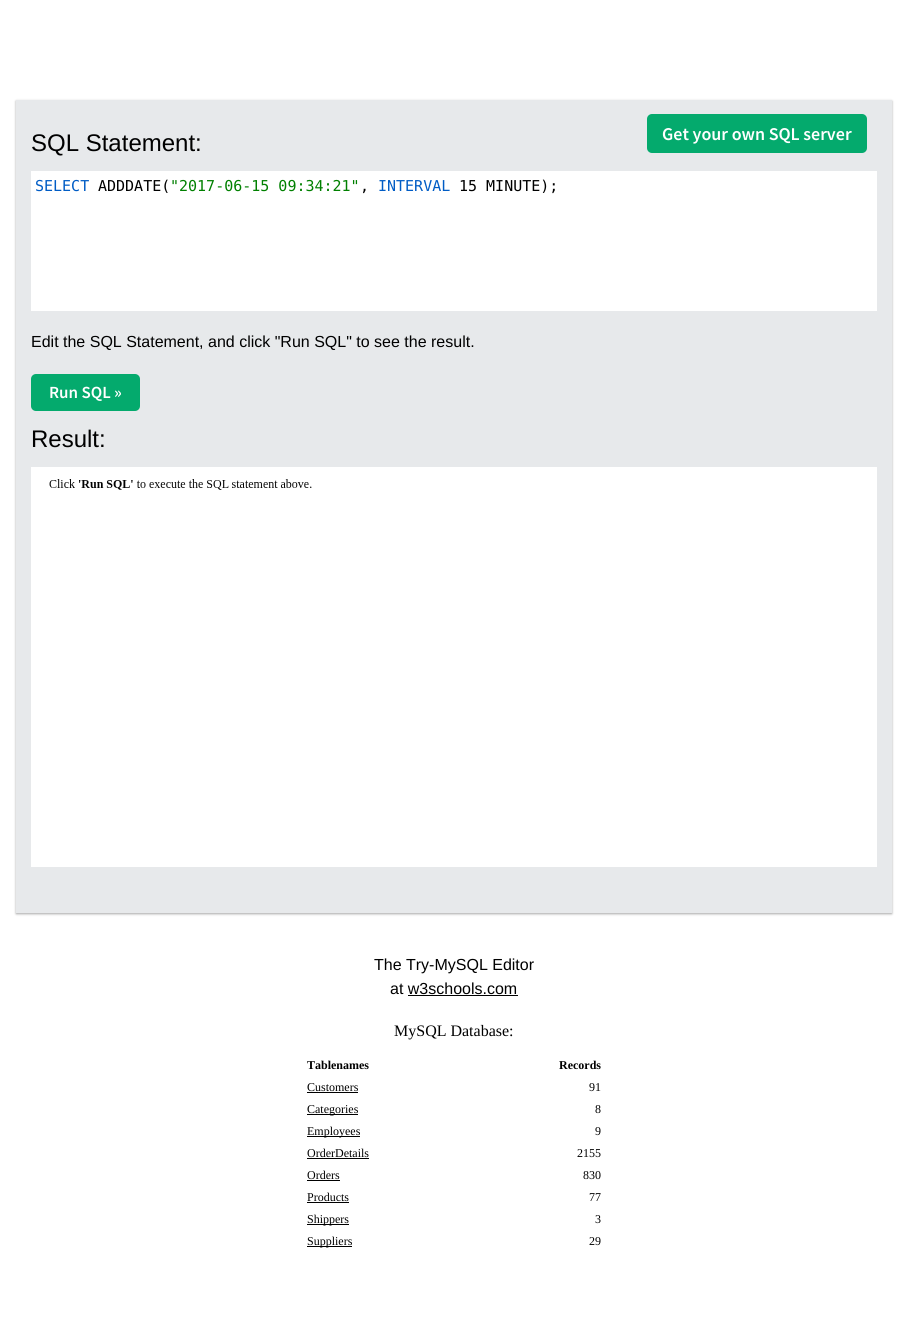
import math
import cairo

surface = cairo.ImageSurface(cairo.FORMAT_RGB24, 908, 1340)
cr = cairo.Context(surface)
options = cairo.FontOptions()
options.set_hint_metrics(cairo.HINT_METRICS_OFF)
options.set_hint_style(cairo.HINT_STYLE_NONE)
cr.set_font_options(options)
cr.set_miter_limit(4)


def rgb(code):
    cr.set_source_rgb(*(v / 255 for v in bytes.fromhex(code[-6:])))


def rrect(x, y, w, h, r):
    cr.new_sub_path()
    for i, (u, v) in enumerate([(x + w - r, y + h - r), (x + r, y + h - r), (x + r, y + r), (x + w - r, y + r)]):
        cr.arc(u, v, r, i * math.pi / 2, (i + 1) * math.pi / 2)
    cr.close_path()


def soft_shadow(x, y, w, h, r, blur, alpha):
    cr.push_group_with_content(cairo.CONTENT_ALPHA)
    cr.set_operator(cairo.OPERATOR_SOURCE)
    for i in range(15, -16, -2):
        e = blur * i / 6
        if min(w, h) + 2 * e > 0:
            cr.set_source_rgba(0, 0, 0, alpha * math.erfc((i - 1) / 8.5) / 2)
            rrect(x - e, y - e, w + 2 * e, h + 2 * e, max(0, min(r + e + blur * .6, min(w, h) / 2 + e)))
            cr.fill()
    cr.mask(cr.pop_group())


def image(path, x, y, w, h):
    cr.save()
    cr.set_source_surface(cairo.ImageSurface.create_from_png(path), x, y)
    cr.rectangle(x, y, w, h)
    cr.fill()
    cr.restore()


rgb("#ffffff")
cr.paint()
rgb("#000000")
soft_shadow(16, 101, 876, 813, 0, 1, 0.24)
soft_shadow(16, 101, 876, 813, 0, 1.5, 0.12)
rgb("#e7e9eb")
cr.rectangle(16, 100, 876, 813)
cr.fill()
rgb("#04aa6d")
rrect(647, 114, 220, 39, 5)
cr.fill()
rgb("#ffffff")
cr.rectangle(31, 171, 846, 140)
cr.fill()
rgb("#04aa6d")
rrect(31, 374, 109, 37, 5)
cr.fill()
rgb("#ffffff")
cr.rectangle(31, 467, 846, 400)
cr.fill()
image("img/1.png", 49, 479, 263, 11)
for x, y, w, h, color in [
    (408, 995, 110, 1, "#000000"),
    (307, 1092, 51, 1, "#000000"),
    (307, 1114, 51, 1, "#000000"),
    (307, 1136, 53, 1, "#000000"),
    (307, 1158, 62, 1, "#000000"),
    (307, 1180, 33, 1, "#000000"),
    (307, 1202, 42, 1, "#000000"),
    (307, 1224, 42, 1, "#000000"),
    (307, 1246, 45, 1, "#000000"),
]:
    rgb(color)
    cr.rectangle(x, y, w, h)
    cr.fill()
cr.select_font_face("Liberation Sans")
cr.set_font_size(24)
cr.move_to(31, 151)
cr.show_text("SQL Statement:")
cr.select_font_face("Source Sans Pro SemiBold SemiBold")
cr.set_font_size(18)
rgb("#ffffff")
cr.move_to(662, 140)
cr.show_text("Get your own SQL server")
cr.select_font_face("DejaVu Sans Mono")
cr.set_font_size(15)
rgb("#005cc5")
cr.move_to(35, 191)
cr.show_text("SELECT")
rgb("#000000")
cr.move_to(98, 191)
cr.show_text("ADDDATE(")
rgb("#008000")
cr.move_to(170, 191)
cr.show_text("\"2017-06-15 09:34:21\"")
rgb("#000000")
cr.move_to(360, 191)
cr.show_text(",")
rgb("#005cc5")
cr.move_to(378, 191)
cr.show_text("INTERVAL")
rgb("#000000")
cr.move_to(459, 191)
cr.show_text("15 MINUTE);")
cr.select_font_face("Liberation Sans")
cr.set_font_size(16)
cr.move_to(31, 347)
cr.show_text("Edit the SQL Statement, and click \"Run SQL\" to see the result.")
cr.select_font_face("Source Sans Pro SemiBold SemiBold")
cr.set_font_size(17)
rgb("#ffffff")
cr.move_to(49, 398)
cr.show_text("Run SQL »")
cr.select_font_face("Liberation Sans")
cr.set_font_size(24)
rgb("#000000")
cr.move_to(31, 447)
cr.show_text("Result:")
cr.set_font_size(16)
cr.move_to(374, 970)
cr.show_text("The Try-MySQL Editor")
cr.move_to(390, 994)
cr.show_text("at w3schools.com")
cr.select_font_face("Liberation Serif")
cr.move_to(394, 1036)
cr.show_text("MySQL Database:")
cr.select_font_face("Liberation Serif", cairo.FONT_SLANT_NORMAL, cairo.FONT_WEIGHT_BOLD)
cr.set_font_size(12)
cr.move_to(307, 1069)
cr.show_text("Tablenames")
cr.move_to(559, 1069)
cr.show_text("Records")
cr.select_font_face("Liberation Serif")
for x, y, s in [
    (307, 1091, "Customers"),
    (589, 1091, "91"),
    (307, 1113, "Categories"),
    (595, 1113, "8"),
    (307, 1135, "Employees"),
    (595, 1135, "9"),
    (307, 1157, "OrderDetails"),
    (577, 1157, "2155"),
    (307, 1179, "Orders"),
    (583, 1179, "830"),
    (307, 1201, "Products"),
    (589, 1201, "77"),
    (307, 1223, "Shippers"),
    (595, 1223, "3"),
    (307, 1245, "Suppliers"),
    (589, 1245, "29"),
]:
    cr.move_to(x, y)
    cr.show_text(s)
surface.write_to_png("page.png")
